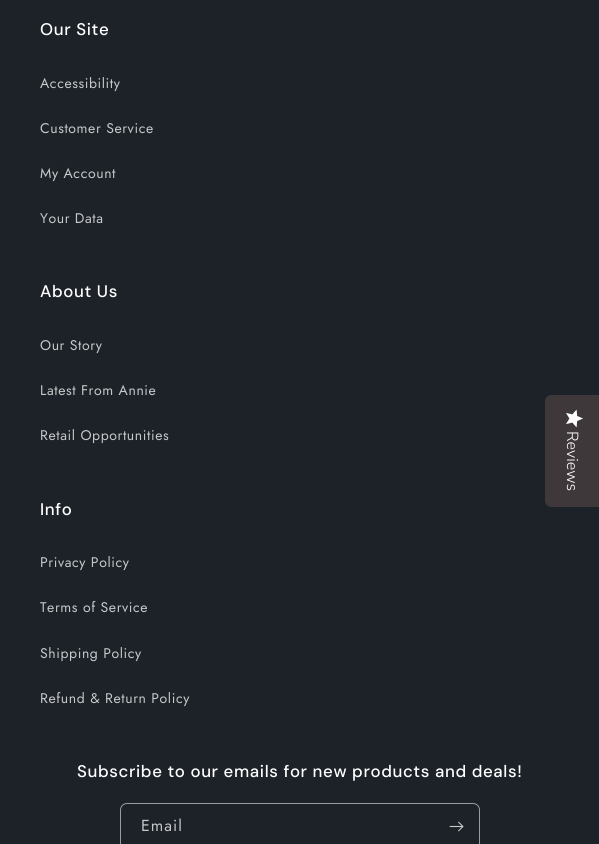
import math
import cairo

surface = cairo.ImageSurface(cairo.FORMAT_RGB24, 599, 844)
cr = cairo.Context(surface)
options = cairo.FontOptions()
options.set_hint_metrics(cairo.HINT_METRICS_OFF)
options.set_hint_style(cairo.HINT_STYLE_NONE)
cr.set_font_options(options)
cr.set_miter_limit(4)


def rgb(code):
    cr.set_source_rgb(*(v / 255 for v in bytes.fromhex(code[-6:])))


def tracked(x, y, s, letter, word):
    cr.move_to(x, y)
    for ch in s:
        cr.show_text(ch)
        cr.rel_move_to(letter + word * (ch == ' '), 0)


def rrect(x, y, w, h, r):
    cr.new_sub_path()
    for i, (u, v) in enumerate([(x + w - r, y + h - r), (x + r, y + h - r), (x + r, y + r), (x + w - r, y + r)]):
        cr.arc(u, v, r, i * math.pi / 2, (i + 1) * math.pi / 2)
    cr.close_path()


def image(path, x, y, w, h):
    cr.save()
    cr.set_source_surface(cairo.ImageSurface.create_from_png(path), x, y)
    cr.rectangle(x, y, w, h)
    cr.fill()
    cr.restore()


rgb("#1c2228")
cr.paint()
rrect(120.5, 803.5, 359, 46, 6.5)
rgb("#999c9e")
cr.set_line_width(1)
cr.stroke()
image("img/1.png", 449, 821, 15, 11)
rgb("#3f383b")
cr.new_path()
cr.move_to(599, 395)
cr.line_to(599, 507)
cr.line_to(551, 507)
cr.curve_to(548, 507, 545, 504, 545, 501)
cr.line_to(545, 401)
cr.curve_to(545, 398, 548, 395, 551, 395)
cr.close_path()
cr.fill()
image("img/2.png", 566, 409, 17, 19)
cr.select_font_face("DM Sans Medium")
cr.set_font_size(16.8)
rgb("#ffffff")
tracked(40, 35, "Our Site", 0.63, 0)
cr.select_font_face("Jost")
cr.set_font_size(14)
rgb("#c6c8c9")
for x, y, s in [
    (40, 88, "Accessibility"),
    (40, 133, "Customer Service"),
    (40, 178, "My Account"),
    (40, 223, "Your Data"),
]:
    tracked(x, y, s, 0.6, 0)
cr.select_font_face("DM Sans Medium")
cr.set_font_size(16.8)
rgb("#ffffff")
tracked(40, 297, "About Us", 0.63, 0)
cr.select_font_face("Jost")
cr.set_font_size(14)
rgb("#c6c8c9")
for x, y, s in [
    (40, 350, "Our Story"),
    (40, 395, "Latest From Annie"),
    (40, 440, "Retail Opportunities"),
]:
    tracked(x, y, s, 0.6, 0)
cr.select_font_face("DM Sans Medium")
cr.set_font_size(16.8)
rgb("#ffffff")
tracked(40, 515, "Info", 0.63, 0)
cr.select_font_face("Jost")
cr.set_font_size(14)
rgb("#c6c8c9")
for x, y, s in [
    (40, 567, "Privacy Policy"),
    (40, 612, "Terms of Service"),
    (40, 658, "Shipping Policy"),
    (40, 703, "Refund & Return Policy"),
]:
    tracked(x, y, s, 0.6, 0)
cr.select_font_face("DM Sans Medium")
cr.set_font_size(16.8)
rgb("#ffffff")
tracked(77, 777, "Subscribe to our emails for new products and deals!", 0.63, 0)
cr.select_font_face("Jost")
cr.set_font_size(16)
rgb("#c6c8c9")
tracked(141, 831, "Email", 1, 0)
cr.select_font_face("Nunito Sans Light")
rgb("#ffffff")
cr.save()
cr.translate(567, 431)
cr.rotate(90 * math.pi / 180)
cr.move_to(0, 0)
cr.show_text("Reviews")
cr.restore()
surface.write_to_png("page.png")
